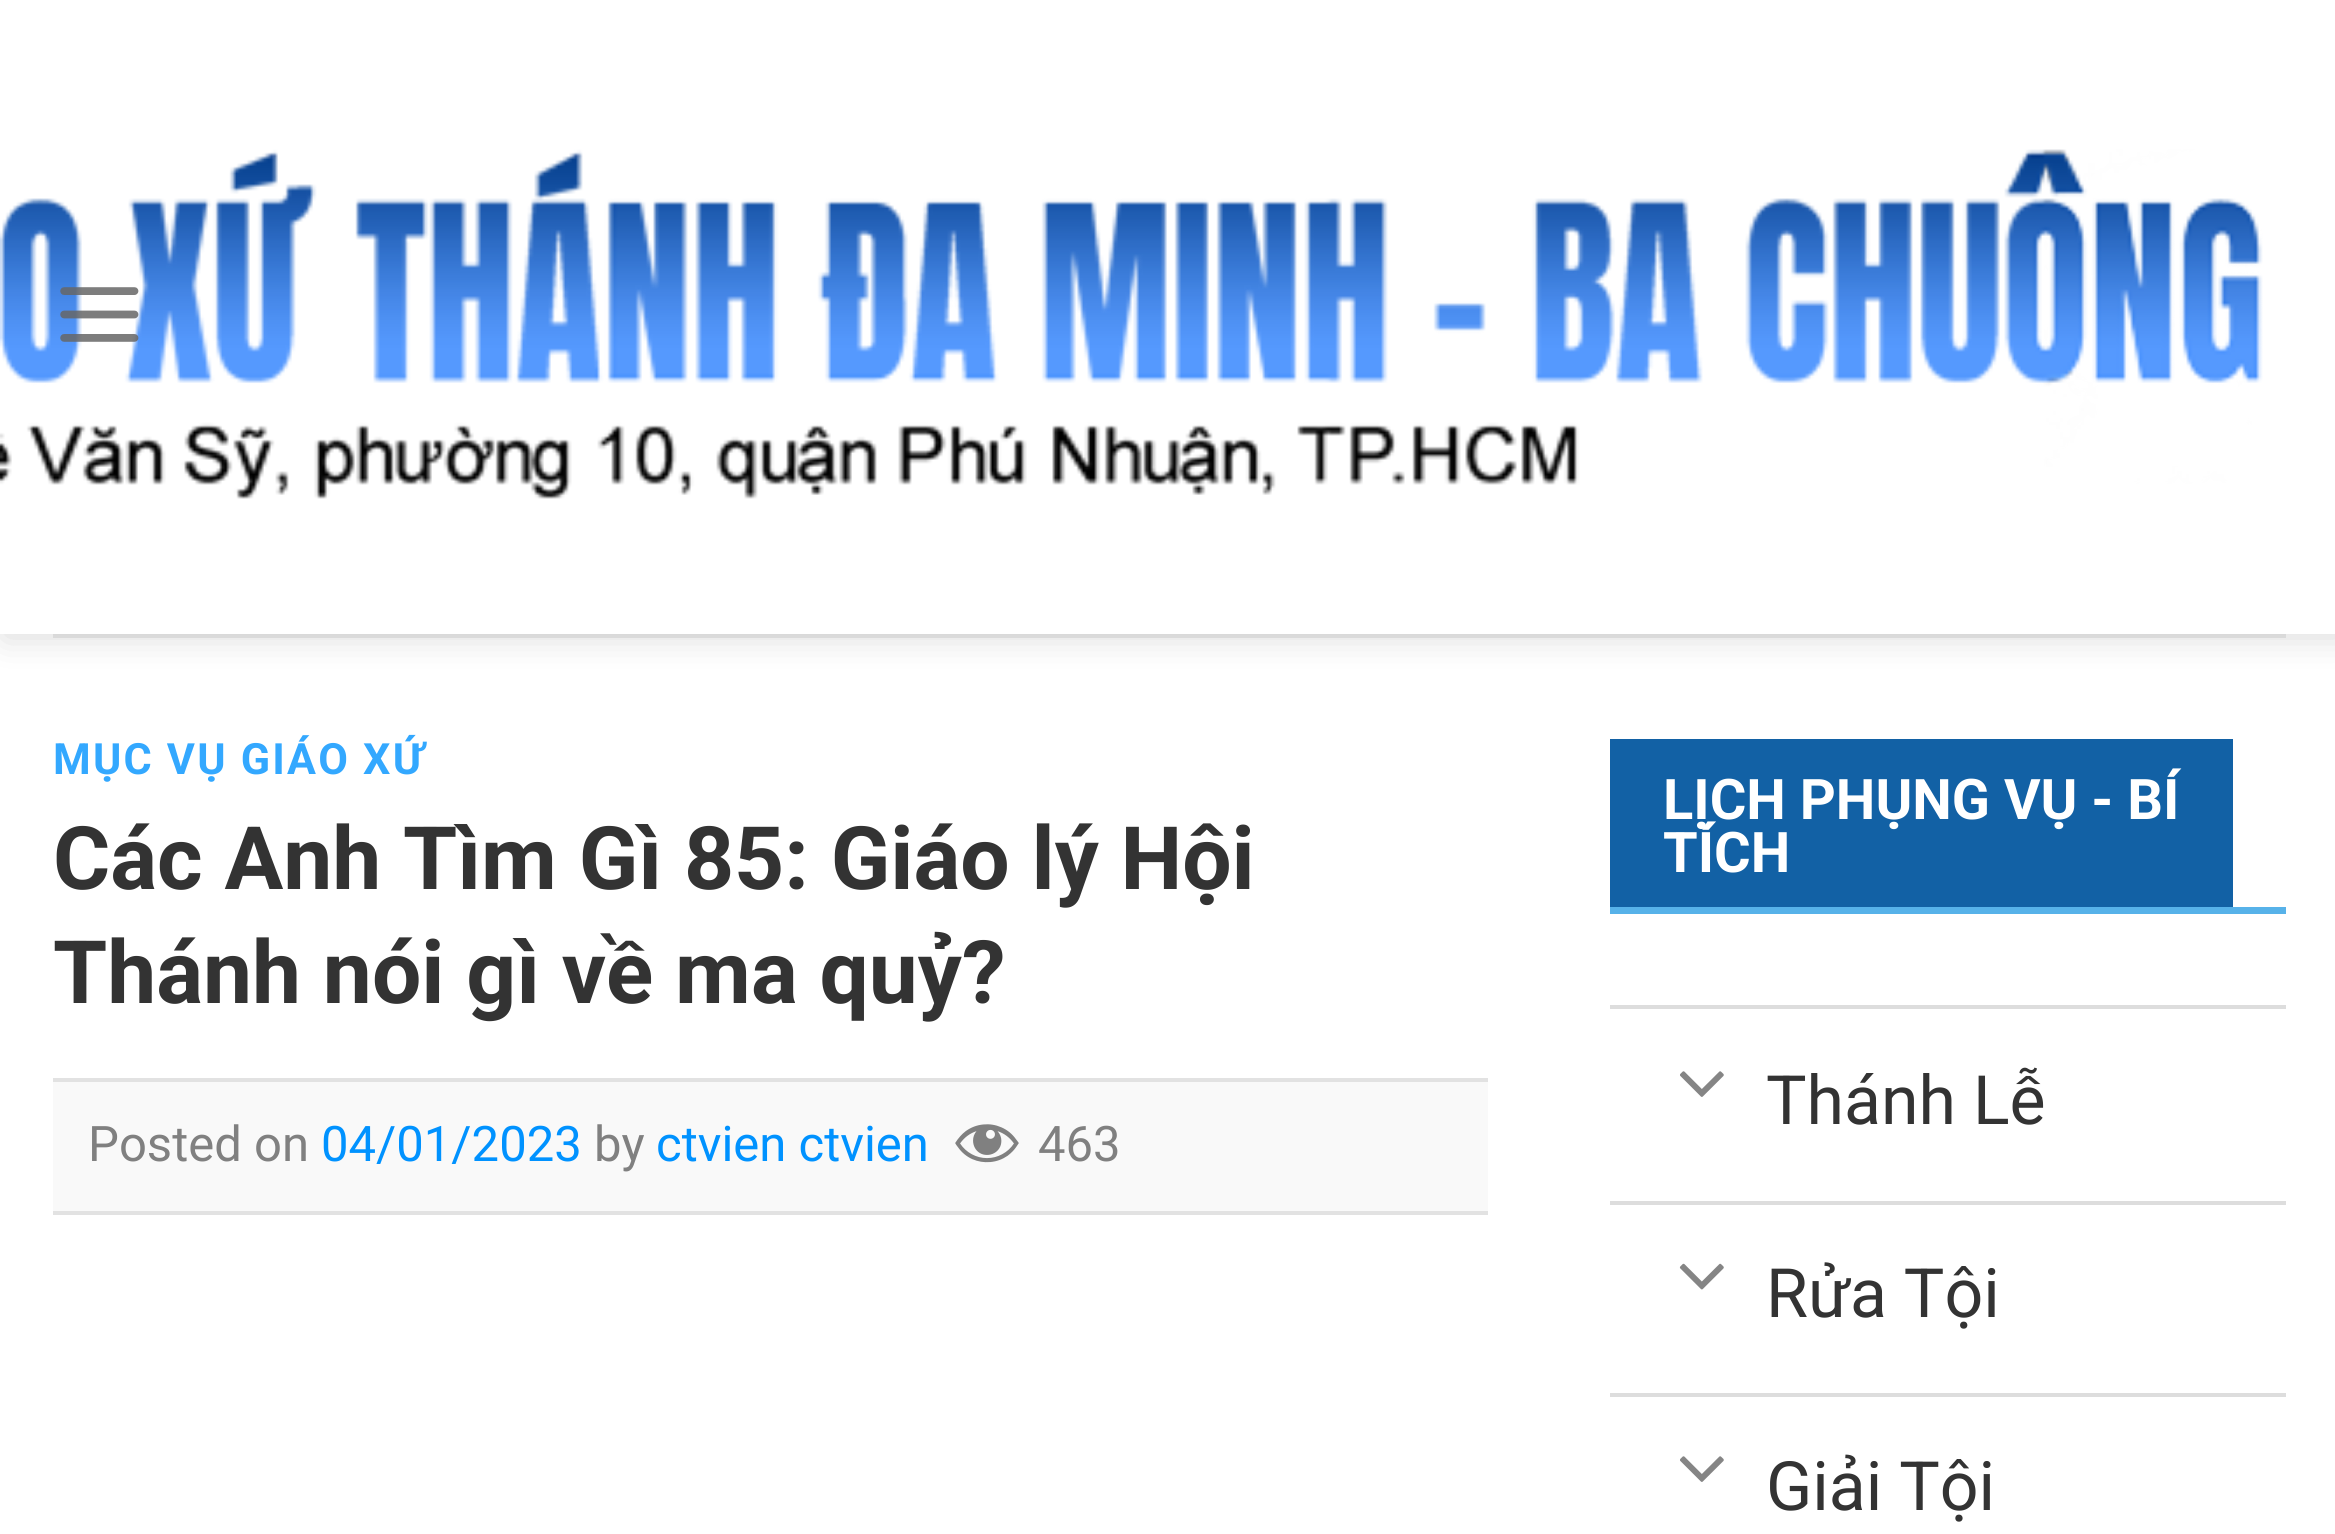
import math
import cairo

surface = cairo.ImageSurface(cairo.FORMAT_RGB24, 2335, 1534)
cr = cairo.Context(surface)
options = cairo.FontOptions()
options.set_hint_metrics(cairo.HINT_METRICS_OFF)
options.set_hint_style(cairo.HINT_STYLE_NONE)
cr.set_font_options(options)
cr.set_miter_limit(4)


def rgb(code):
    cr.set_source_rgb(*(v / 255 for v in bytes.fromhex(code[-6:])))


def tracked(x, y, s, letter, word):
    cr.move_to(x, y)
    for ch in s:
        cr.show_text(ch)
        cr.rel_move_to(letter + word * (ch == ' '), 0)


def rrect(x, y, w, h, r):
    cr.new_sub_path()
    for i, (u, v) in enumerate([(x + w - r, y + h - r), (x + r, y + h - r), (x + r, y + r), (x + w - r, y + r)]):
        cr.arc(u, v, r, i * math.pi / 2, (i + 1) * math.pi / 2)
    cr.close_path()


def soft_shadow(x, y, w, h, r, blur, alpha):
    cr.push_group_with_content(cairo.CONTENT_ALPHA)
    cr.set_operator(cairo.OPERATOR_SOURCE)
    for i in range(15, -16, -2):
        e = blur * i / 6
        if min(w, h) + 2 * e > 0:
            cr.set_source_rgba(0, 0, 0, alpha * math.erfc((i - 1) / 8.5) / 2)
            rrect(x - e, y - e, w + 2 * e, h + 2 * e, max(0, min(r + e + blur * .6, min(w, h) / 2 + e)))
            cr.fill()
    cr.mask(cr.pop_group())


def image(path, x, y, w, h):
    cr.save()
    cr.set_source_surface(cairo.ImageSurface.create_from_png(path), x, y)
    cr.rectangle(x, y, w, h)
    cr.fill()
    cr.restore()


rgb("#ffffff")
cr.paint()
cr.save()
cr.set_fill_rule(cairo.FILL_RULE_EVEN_ODD)
cr.new_path()
cr.move_to(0, 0)
cr.line_to(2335, 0)
cr.line_to(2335, 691)
cr.line_to(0, 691)
cr.close_path()
cr.move_to(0, 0)
cr.line_to(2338, 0)
cr.line_to(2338, 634)
cr.line_to(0, 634)
cr.close_path()
cr.clip()
rgb("#000000")
soft_shadow(4, 4, 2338, 633, 0, 17.5, 0.15)
cr.restore()
image("img/1.png", 0, 149, 2263, 350)
image("img/2.png", 60, 287, 79, 55)
cr.set_source_rgba(0.2, 0.2, 0.2, 0.1)
cr.rectangle(53, 634, 2233, 4)
cr.fill()
rgb("#f9f9f9")
cr.rectangle(53, 1082, 1435, 129)
cr.fill()
rgb("#e2e2e2")
cr.rectangle(53, 1078, 1435, 4)
cr.rectangle(53, 1211, 1435, 4)
cr.fill()
image("img/3.png", 955, 1124, 64, 39)
for x, y, w, h, color in [
    (1610, 907, 676, 7, "#57b2e9"),
    (1610, 739, 623, 168, "#1261a5"),
    (1610, 1005, 676, 4, "#dddddd"),
]:
    rgb(color)
    cr.rectangle(x, y, w, h)
    cr.fill()
image("img/4.png", 1680, 1071, 44, 26)
cr.rectangle(1610, 1201, 676, 4)
cr.fill()
image("img/5.png", 1679, 1263, 45, 27)
cr.rectangle(1610, 1393, 676, 4)
cr.fill()
image("img/4.png", 1680, 1456, 44, 26)
cr.select_font_face("Roboto", cairo.FONT_SLANT_NORMAL, cairo.FONT_WEIGHT_BOLD)
cr.set_font_size(43.1)
rgb("#33a8ff")
tracked(53, 774, "MỤC VỤ GIÁO XỨ", 2.2, 0)
cr.set_font_size(87.5)
rgb("#333333")
cr.move_to(53, 889)
cr.show_text("Các Anh Tìm Gì 85: Giáo lý Hội")
cr.move_to(53, 1003)
cr.show_text("Thánh nói gì về ma quỷ?")
cr.select_font_face("Roboto")
cr.set_font_size(49)
rgb("#808080")
cr.move_to(88, 1161)
cr.show_text("Posted on")
rgb("#0092ff")
cr.move_to(321, 1161)
cr.show_text("04/01/2023")
rgb("#808080")
cr.move_to(594, 1161)
cr.show_text("by")
rgb("#0092ff")
cr.move_to(656, 1161)
cr.show_text("ctvien ctvien")
rgb("#808080")
cr.move_to(1038, 1161)
cr.show_text("463")
cr.select_font_face("Roboto", cairo.FONT_SLANT_NORMAL, cairo.FONT_WEIGHT_BOLD)
cr.set_font_size(56)
rgb("#ffffff")
cr.move_to(1663, 819)
cr.show_text("LỊCH PHỤNG VỤ - BÍ")
cr.move_to(1663, 872)
cr.show_text("TÍCH")
cr.select_font_face("Roboto")
cr.set_font_size(68)
rgb("#333333")
for x, y, s in [
    (1766, 1124, "Thánh Lễ"),
    (1766, 1317, "Rửa Tội"),
    (1766, 1510, "Giải Tội"),
]:
    cr.move_to(x, y)
    cr.show_text(s)
surface.write_to_png("page.png")
